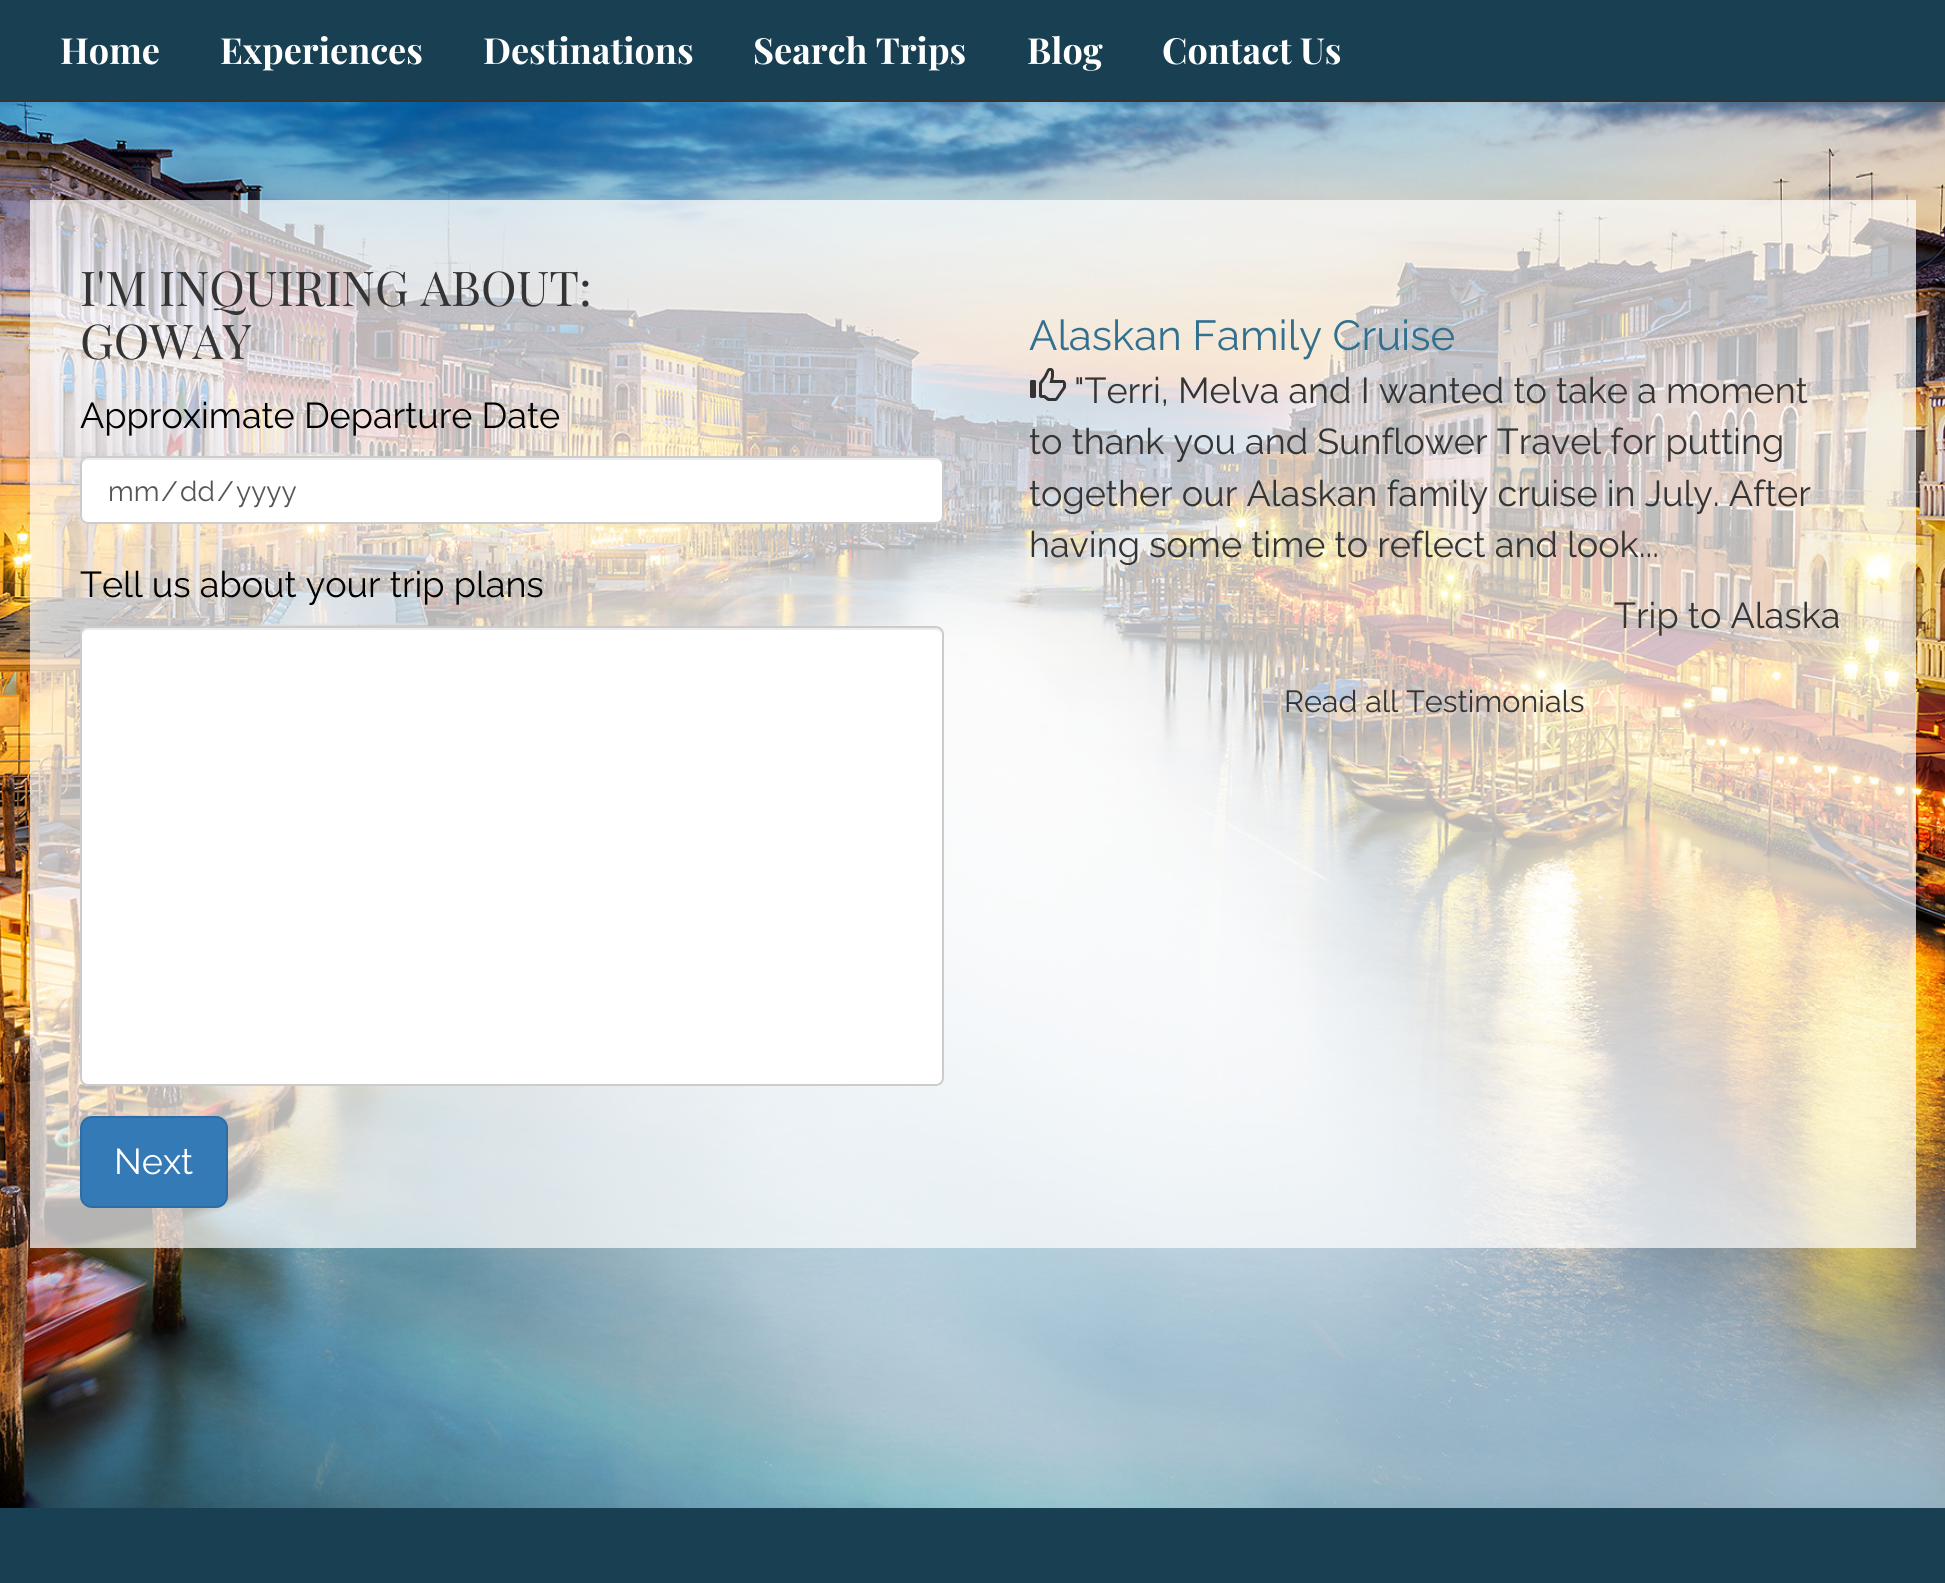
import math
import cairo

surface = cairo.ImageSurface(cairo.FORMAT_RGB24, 1945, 1583)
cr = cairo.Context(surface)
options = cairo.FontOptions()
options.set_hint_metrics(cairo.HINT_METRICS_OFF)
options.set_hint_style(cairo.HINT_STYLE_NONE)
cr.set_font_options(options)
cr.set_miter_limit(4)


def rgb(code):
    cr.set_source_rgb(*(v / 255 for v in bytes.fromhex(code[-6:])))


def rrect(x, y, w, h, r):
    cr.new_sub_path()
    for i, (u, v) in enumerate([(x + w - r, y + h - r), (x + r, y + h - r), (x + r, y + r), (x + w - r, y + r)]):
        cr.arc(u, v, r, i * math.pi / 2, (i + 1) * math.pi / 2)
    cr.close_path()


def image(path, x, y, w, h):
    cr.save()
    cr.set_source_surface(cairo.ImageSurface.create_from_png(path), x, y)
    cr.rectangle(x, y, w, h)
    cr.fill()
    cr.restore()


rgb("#ffffff")
cr.paint()
rgb("#194052")
cr.rectangle(0, 0, 1945, 100)
cr.fill()
rgb("#333333")
cr.rectangle(0, 100, 1945, 2)
cr.fill()
image("img/1.png", 0, 102, 1945, 1406)
cr.set_source_rgba(1, 1, 1, 0.7)
cr.rectangle(30, 200, 1886, 1048)
cr.fill()
rgb("#ffffff")
rrect(80, 456, 864, 68, 8)
cr.fill()
rgb("#ececec")
cr.new_path()
cr.move_to(88, 460)
cr.line_to(936, 460)
cr.curve_to(939, 460, 942, 463, 942, 466)
cr.curve_to(942, 462, 941, 458, 936, 458)
cr.line_to(88, 458)
cr.curve_to(83, 458, 82, 462, 82, 466)
cr.curve_to(82, 463, 85, 460, 88, 460)
cr.close_path()
cr.fill()
rrect(81, 457, 862, 66, 7)
rgb("#cccccc")
cr.stroke()
rgb("#ffffff")
rrect(80, 626, 864, 460, 8)
cr.fill()
rgb("#ececec")
cr.new_path()
cr.move_to(88, 630)
cr.line_to(936, 630)
cr.curve_to(939, 630, 942, 633, 942, 636)
cr.curve_to(942, 632, 941, 628, 936, 628)
cr.line_to(88, 628)
cr.curve_to(83, 628, 82, 632, 82, 636)
cr.curve_to(82, 633, 85, 630, 88, 630)
cr.close_path()
cr.fill()
rrect(81, 627, 862, 458, 7)
rgb("#cccccc")
cr.stroke()
rgb("#337ab7")
rrect(81, 1117, 146, 90, 11)
cr.fill_preserve()
rgb("#2e6da4")
cr.stroke()
image("img/2.png", 1030, 368, 36, 33)
rgb("#194052")
cr.rectangle(0, 1508, 1945, 75)
cr.fill()
cr.select_font_face("Playfair Display", cairo.FONT_SLANT_NORMAL, cairo.FONT_WEIGHT_BOLD)
cr.set_font_size(36)
rgb("#ffffff")
for x, y, s in [
    (60, 64, "Home"),
    (220, 64, "Experiences"),
    (483, 64, "Destinations"),
    (753, 64, "Search Trips"),
    (1027, 64, "Blog"),
    (1162, 64, "Contact Us"),
]:
    cr.move_to(x, y)
    cr.show_text(s)
cr.select_font_face("Playfair Display")
cr.set_font_size(48)
rgb("#343434")
cr.move_to(80, 306)
cr.show_text("I'M INQUIRING ABOUT:")
cr.move_to(80, 359)
cr.show_text("GOWAY")
cr.select_font_face("Raleway")
cr.set_font_size(36)
rgb("#000000")
cr.move_to(80, 428)
cr.show_text("Approximate Departure Date")
cr.set_font_size(28)
rgb("#555555")
for x, y, s in [
    (108, 501, "mm"),
    (161, 501, "/"),
    (180, 501, "dd"),
    (217, 501, "/"),
    (236, 501, "yyyy"),
]:
    cr.move_to(x, y)
    cr.show_text(s)
cr.set_font_size(36)
rgb("#000000")
cr.move_to(80, 597)
cr.show_text("Tell us about your trip plans")
rgb("#ffffff")
cr.move_to(114, 1174)
cr.show_text("Next")
cr.set_font_size(42)
rgb("#31708f")
cr.move_to(1029, 350)
cr.show_text("Alaskan Family Cruise")
cr.set_font_size(36)
rgb("#343434")
for x, y, s in [
    (1074, 403, "\"Terri, Melva and I wanted to take a moment"),
    (1029, 454, "to thank you and Sunflower Travel for putting"),
    (1029, 506, "together our Alaskan family cruise in July. After"),
    (1029, 557, "having some time to reflect and look..."),
    (1614, 628, "Trip to Alaska"),
]:
    cr.move_to(x, y)
    cr.show_text(s)
cr.set_font_size(30.5)
cr.move_to(1284, 712)
cr.show_text("Read all Testimonials")
surface.write_to_png("page.png")
